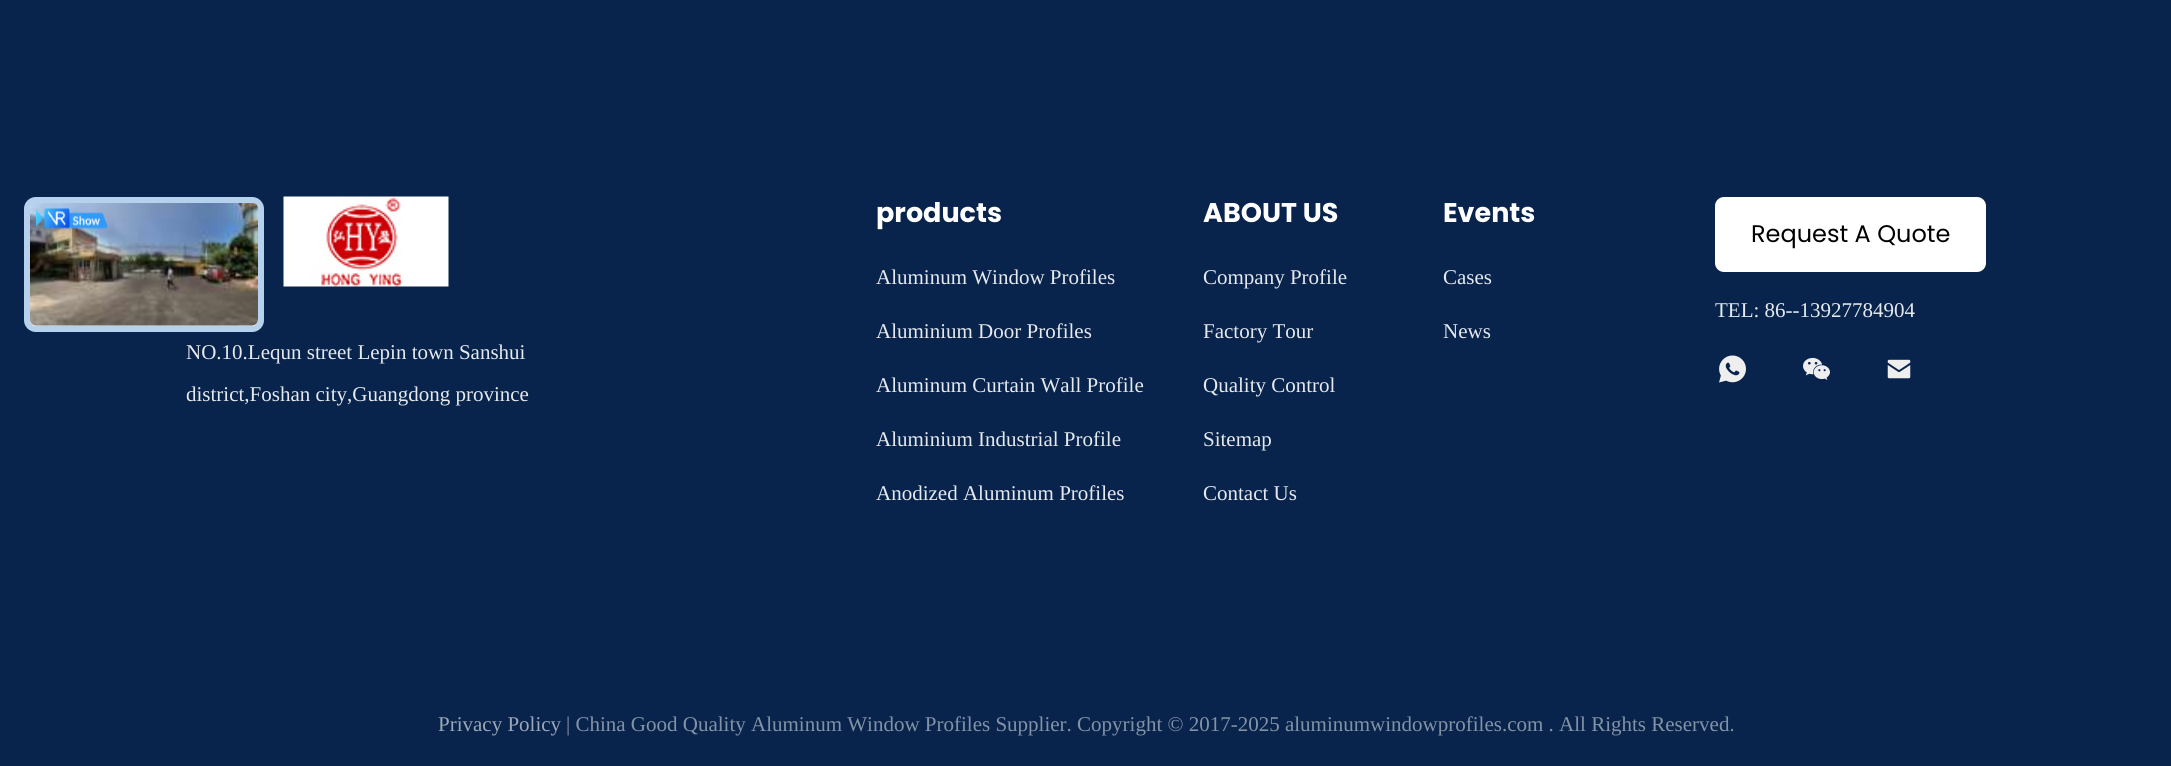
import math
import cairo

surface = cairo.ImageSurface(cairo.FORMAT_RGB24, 2171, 766)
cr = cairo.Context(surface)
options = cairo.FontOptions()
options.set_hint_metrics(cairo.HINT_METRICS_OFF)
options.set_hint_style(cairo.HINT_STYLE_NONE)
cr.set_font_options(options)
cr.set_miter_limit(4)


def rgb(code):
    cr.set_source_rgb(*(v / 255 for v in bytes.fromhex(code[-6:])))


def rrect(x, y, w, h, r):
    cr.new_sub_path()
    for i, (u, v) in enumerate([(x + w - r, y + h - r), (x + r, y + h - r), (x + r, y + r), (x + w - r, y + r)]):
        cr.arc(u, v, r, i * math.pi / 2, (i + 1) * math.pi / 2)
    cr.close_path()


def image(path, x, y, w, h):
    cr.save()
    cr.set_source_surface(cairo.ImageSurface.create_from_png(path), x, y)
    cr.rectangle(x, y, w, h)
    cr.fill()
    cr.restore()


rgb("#08244c")
cr.paint()
rgb("#eeeeee")
rrect(24, 197, 240, 135, 12)
cr.fill()
rrect(27, 200, 234, 129, 9)
cr.set_source_rgba(0.016, 0.471, 0.929, 0.24)
cr.set_line_width(6)
cr.stroke()
rgb("#eeeeee")
rrect(30, 203, 228, 123, 6)
cr.fill()
image("img/1.png", 30, 203, 228, 123)
image("img/2.png", 36, 208, 72, 21)
rgb("#ffffff")
rrect(1715, 197, 271, 75, 9)
cr.fill()
image("img/3.png", 1719, 355, 27, 28)
image("img/4.png", 1803, 357, 27, 23)
image("img/5.png", 1887, 359, 24, 20)
image("img/6.png", 283, 196, 166, 91)
cr.select_font_face("Poppins", cairo.FONT_SLANT_NORMAL, cairo.FONT_WEIGHT_BOLD)
cr.set_font_size(27)
cr.move_to(876, 222)
cr.show_text("products")
cr.select_font_face("Liberation Serif")
cr.set_font_size(21)
rgb("#e6e9ed")
for x, y, s in [
    (876, 284, "Aluminum Window Profiles"),
    (876, 338, "Aluminium Door Profiles"),
    (876, 392, "Aluminum Curtain Wall Profile"),
    (876, 446, "Aluminium Industrial Profile"),
    (876, 500, "Anodized Aluminum Profiles"),
]:
    cr.move_to(x, y)
    cr.show_text(s)
cr.select_font_face("Poppins", cairo.FONT_SLANT_NORMAL, cairo.FONT_WEIGHT_BOLD)
cr.set_font_size(27)
rgb("#ffffff")
cr.move_to(1203, 222)
cr.show_text("ABOUT US")
cr.select_font_face("Liberation Serif")
cr.set_font_size(21)
rgb("#e6e9ed")
for x, y, s in [
    (1203, 284, "Company Profile"),
    (1203, 338, "Factory Tour"),
    (1203, 392, "Quality Control"),
    (1203, 446, "Sitemap"),
    (1203, 500, "Contact Us"),
]:
    cr.move_to(x, y)
    cr.show_text(s)
cr.select_font_face("Poppins", cairo.FONT_SLANT_NORMAL, cairo.FONT_WEIGHT_BOLD)
cr.set_font_size(27)
rgb("#ffffff")
cr.move_to(1443, 222)
cr.show_text("Events")
cr.select_font_face("Liberation Serif")
cr.set_font_size(21)
rgb("#e6e9ed")
cr.move_to(1443, 284)
cr.show_text("Cases")
cr.move_to(1443, 338)
cr.show_text("News")
cr.select_font_face("Poppins")
cr.set_font_size(24)
rgb("#000000")
cr.move_to(1751, 242)
cr.show_text("Request A Quote")
cr.select_font_face("Liberation Serif")
cr.set_font_size(21)
rgb("#e6e9ed")
for x, y, s in [
    (1715, 317, "TEL: 86--13927784904"),
    (186, 359, "NO.10.Lequn street Lepin town Sanshui"),
    (186, 401, "district,Foshan city,Guangdong province"),
]:
    cr.move_to(x, y)
    cr.show_text(s)
rgb("#9ca7b7")
cr.move_to(438, 731)
cr.show_text("Privacy Policy")
rgb("#8492a6")
cr.move_to(566, 731)
cr.show_text("| China Good Quality Aluminum Window Profiles Supplier. Copyright © 2017-2025 aluminumwindowprofiles.com . All Rights Reserved.")
surface.write_to_png("page.png")
